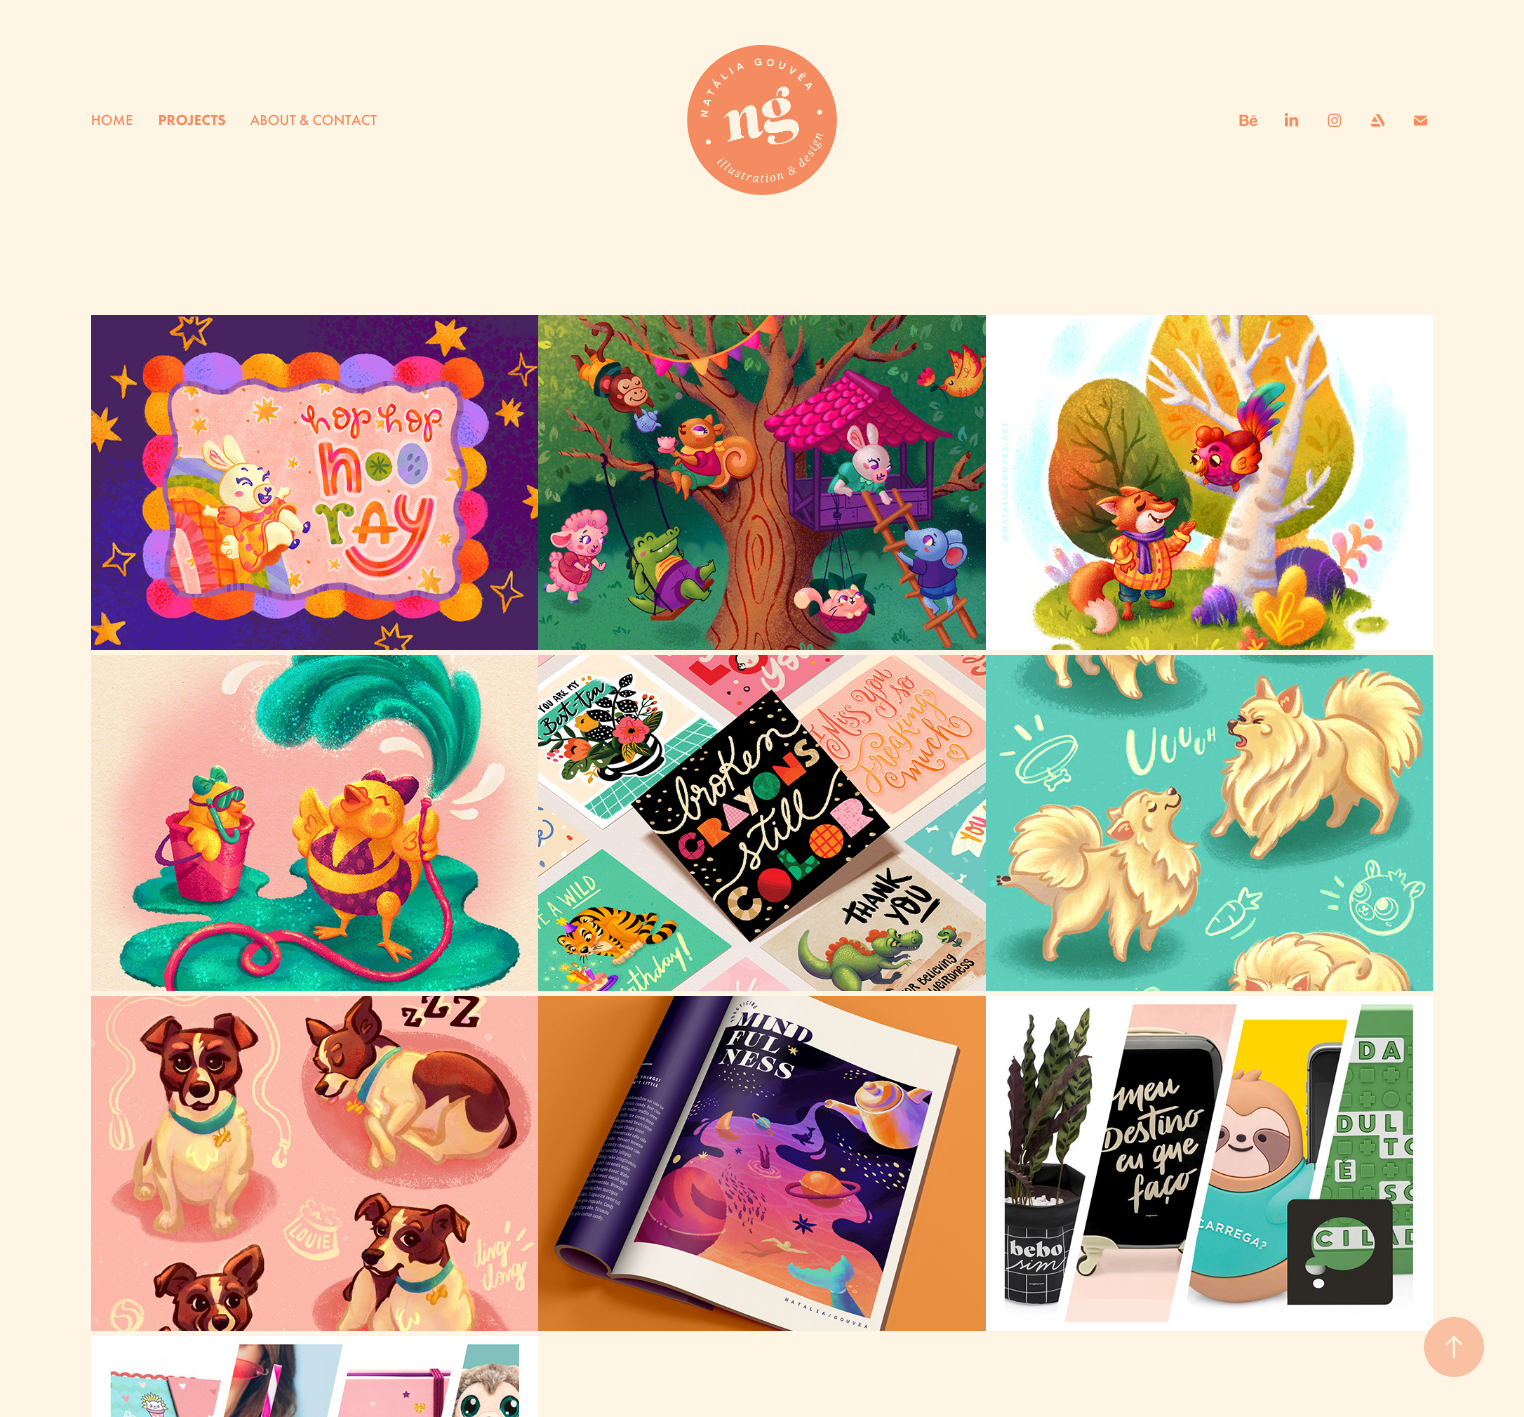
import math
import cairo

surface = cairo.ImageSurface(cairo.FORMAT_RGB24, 1524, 1417)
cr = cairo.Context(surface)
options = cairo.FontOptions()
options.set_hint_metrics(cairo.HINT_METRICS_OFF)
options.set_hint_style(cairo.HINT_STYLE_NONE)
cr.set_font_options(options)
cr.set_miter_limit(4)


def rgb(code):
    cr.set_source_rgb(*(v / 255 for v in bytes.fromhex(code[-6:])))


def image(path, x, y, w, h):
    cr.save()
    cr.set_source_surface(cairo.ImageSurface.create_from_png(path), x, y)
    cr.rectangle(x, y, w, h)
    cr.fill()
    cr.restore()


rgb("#fff5e4")
cr.paint()
image("img/1.png", 687, 45, 150, 150)
image("img/2.png", 1239, 114, 19, 13)
image("img/3.png", 1284, 113, 15, 14)
image("img/4.png", 1327, 113, 14, 15)
image("img/5.png", 1370, 114, 15, 13)
image("img/6.png", 1413, 115, 15, 11)
image("img/7.png", 91, 315, 447, 335)
image("img/8.png", 538, 315, 448, 335)
image("img/9.png", 986, 315, 447, 335)
image("img/10.png", 91, 655, 447, 336)
image("img/11.png", 538, 655, 448, 336)
image("img/12.png", 986, 655, 447, 336)
image("img/13.png", 91, 996, 447, 335)
image("img/14.png", 538, 996, 448, 335)
image("img/15.png", 986, 996, 447, 335)
image("img/16.png", 91, 1336, 447, 81)
cr.set_source_rgba(0.965, 0.553, 0.38, 0.5)
cr.arc(1454, 1347, 30, 0, 2 * math.pi)
cr.fill()
image("img/17.png", 1445, 1336, 18, 23)
cr.select_font_face("Futura PT Medium")
cr.set_font_size(15)
rgb("#f68d61")
cr.move_to(91, 125)
cr.show_text("HOME")
cr.select_font_face("Futura PT Black")
cr.move_to(158, 125)
cr.show_text("PROJECTS")
cr.select_font_face("Futura PT Medium")
cr.move_to(250, 125)
cr.show_text("ABOUT & CONTACT")
surface.write_to_png("page.png")
